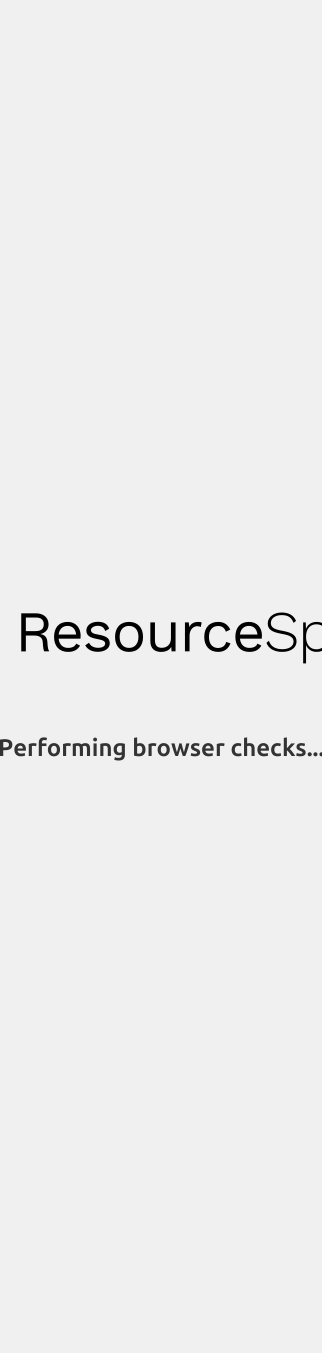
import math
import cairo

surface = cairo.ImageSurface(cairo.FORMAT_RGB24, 322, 1353)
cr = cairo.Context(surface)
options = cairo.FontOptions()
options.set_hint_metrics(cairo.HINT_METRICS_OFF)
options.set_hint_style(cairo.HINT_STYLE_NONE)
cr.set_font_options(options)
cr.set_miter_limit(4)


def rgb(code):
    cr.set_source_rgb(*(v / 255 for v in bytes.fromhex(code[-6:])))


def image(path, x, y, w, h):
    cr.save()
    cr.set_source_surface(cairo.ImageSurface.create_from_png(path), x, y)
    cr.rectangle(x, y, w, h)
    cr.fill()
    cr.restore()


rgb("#f0f0f0")
cr.paint()
image("img/1.png", 21, 612, 301, 52)
cr.select_font_face("Ubuntu", cairo.FONT_SLANT_NORMAL, cairo.FONT_WEIGHT_BOLD)
cr.set_font_size(24)
rgb("#333333")
cr.move_to(-2, 756)
cr.show_text("Performing browser checks...")
surface.write_to_png("page.png")
